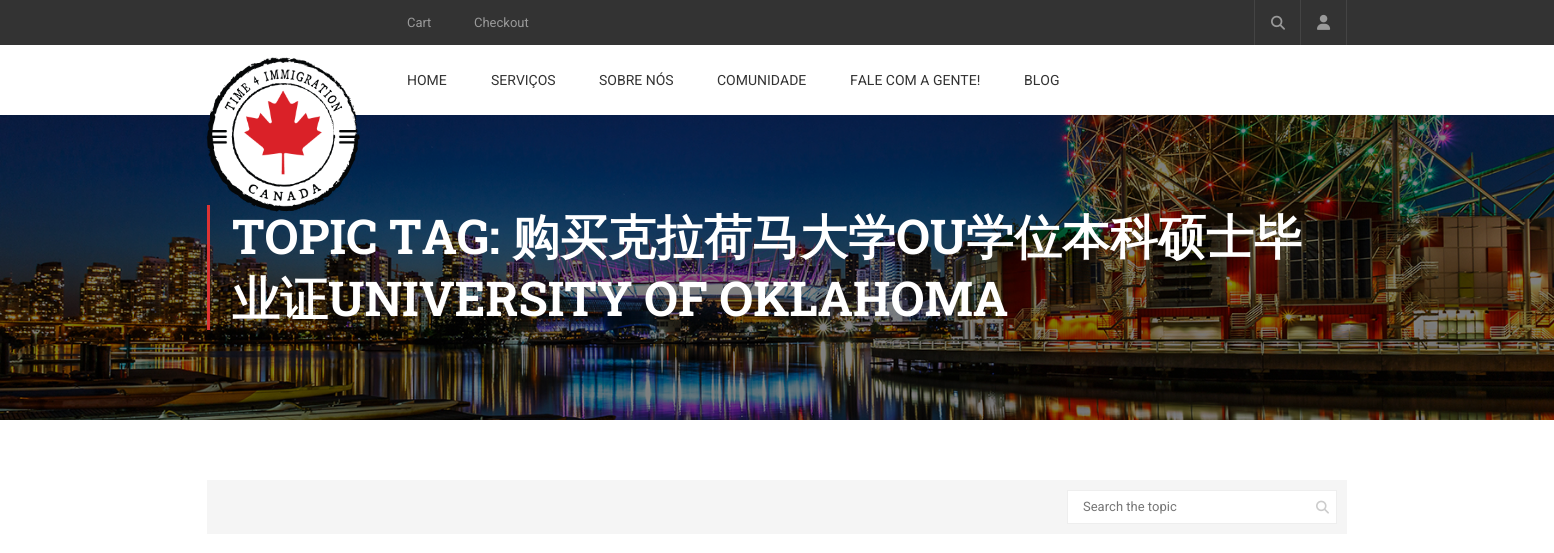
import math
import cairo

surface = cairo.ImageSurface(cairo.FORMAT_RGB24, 1554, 553)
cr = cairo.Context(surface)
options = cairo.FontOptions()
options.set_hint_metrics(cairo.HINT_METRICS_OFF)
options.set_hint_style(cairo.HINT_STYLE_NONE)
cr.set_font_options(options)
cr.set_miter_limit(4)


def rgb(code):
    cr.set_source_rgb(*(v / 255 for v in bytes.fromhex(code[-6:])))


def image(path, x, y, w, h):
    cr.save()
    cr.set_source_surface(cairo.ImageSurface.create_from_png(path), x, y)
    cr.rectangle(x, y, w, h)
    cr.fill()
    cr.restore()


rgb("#ffffff")
cr.paint()
rgb("#333333")
cr.rectangle(0, 0, 1554, 45)
cr.fill()
rgb("#444444")
cr.rectangle(1254, 0, 1, 45)
cr.fill()
image("img/1.png", 1271, 15, 14, 15)
cr.rectangle(1346, 0, 1, 45)
cr.fill()
cr.rectangle(1300, 0, 1, 45)
cr.fill()
image("img/2.png", 1317, 14, 14, 16)
image("img/4.png", 0, 115, 1554, 305)
rgb("#dd3333")
cr.rectangle(207, 205, 3, 125)
cr.fill()
image("img/3.png", 206, 57, 154, 155)
rgb("#f5f5f5")
cr.rectangle(207, 480, 1140, 54)
cr.fill()
rgb("#ffffff")
cr.rectangle(1067.5, 490.5, 269, 33)
cr.fill_preserve()
rgb("#eeeeee")
cr.set_line_width(1)
cr.stroke()
image("img/5.png", 1316, 500, 13, 14)
cr.select_font_face("Roboto")
cr.set_font_size(13)
rgb("#999999")
cr.move_to(407, 27)
cr.show_text("Cart")
cr.move_to(474, 27)
cr.show_text("Checkout")
cr.set_font_size(14)
rgb("#333333")
for x, y, s in [
    (407, 85, "HOME"),
    (491, 85, "SERVIÇOS"),
    (599, 85, "SOBRE NÓS"),
    (717, 85, "COMUNIDADE"),
    (850, 85, "FALE COM A GENTE!"),
    (1024, 85, "BLOG"),
]:
    cr.move_to(x, y)
    cr.show_text(s)
cr.select_font_face("Roboto Slab", cairo.FONT_SLANT_NORMAL, cairo.FONT_WEIGHT_BOLD)
cr.set_font_size(48)
rgb("#ffffff")
cr.move_to(232, 254)
cr.show_text("TOPIC TAG:")
cr.select_font_face("WenQuanYi Zen Hei", cairo.FONT_SLANT_NORMAL, cairo.FONT_WEIGHT_BOLD)
cr.move_to(512, 254)
cr.show_text("购买克拉荷马大学")
cr.select_font_face("Roboto Slab", cairo.FONT_SLANT_NORMAL, cairo.FONT_WEIGHT_BOLD)
cr.move_to(896, 254)
cr.show_text("OU")
cr.select_font_face("WenQuanYi Zen Hei", cairo.FONT_SLANT_NORMAL, cairo.FONT_WEIGHT_BOLD)
cr.move_to(966, 254)
cr.show_text("学位本科硕士毕")
cr.move_to(232, 316)
cr.show_text("业证")
cr.select_font_face("Roboto Slab", cairo.FONT_SLANT_NORMAL, cairo.FONT_WEIGHT_BOLD)
cr.move_to(328, 316)
cr.show_text("UNIVERSITY OF OKLAHOMA")
cr.select_font_face("Roboto")
cr.set_font_size(13)
rgb("#757575")
cr.move_to(1083, 511)
cr.show_text("Search the topic")
surface.write_to_png("page.png")
